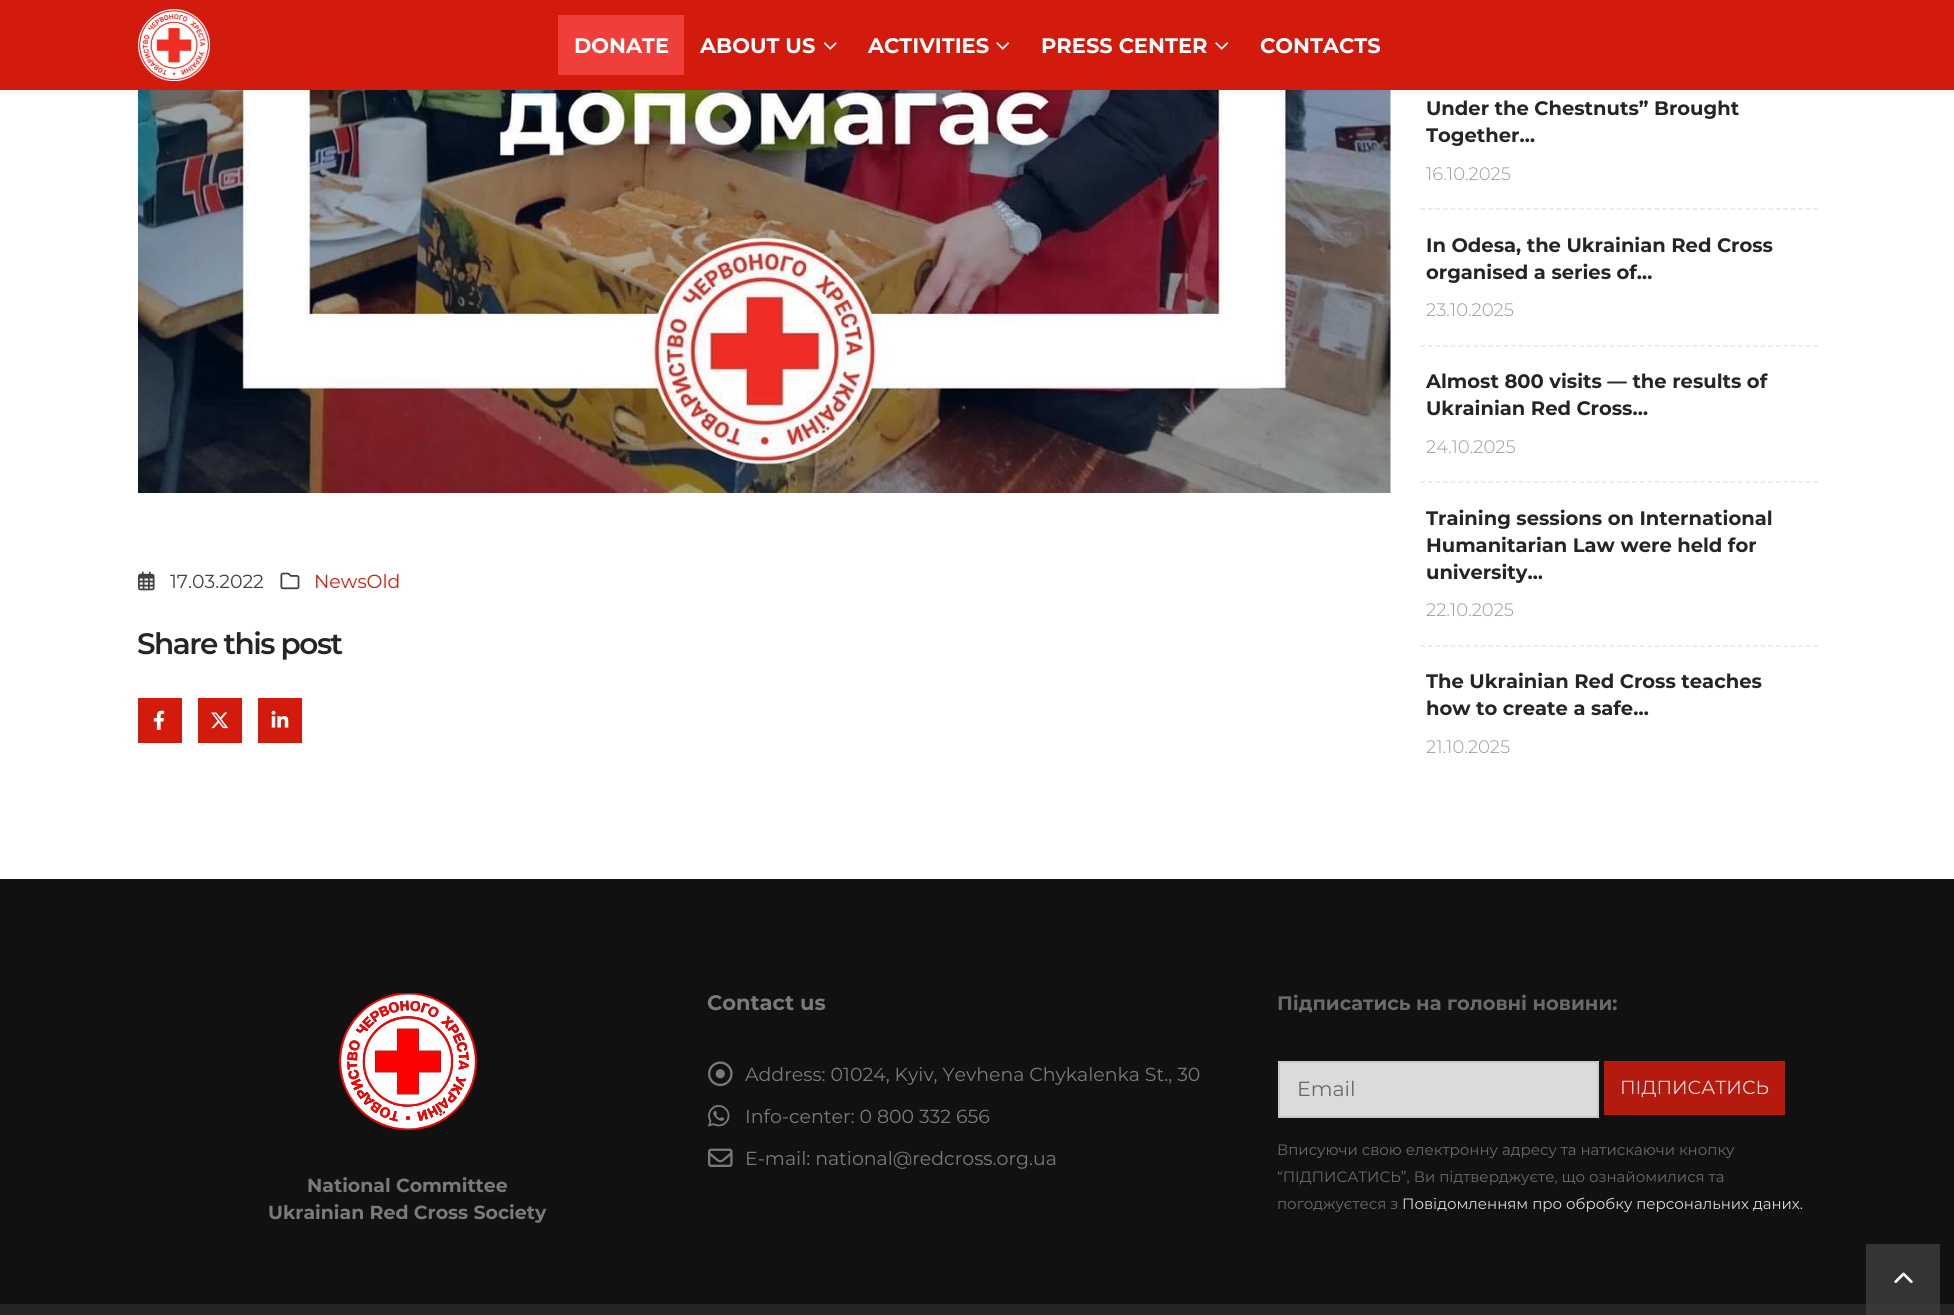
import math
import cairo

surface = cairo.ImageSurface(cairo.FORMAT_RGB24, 1954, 1315)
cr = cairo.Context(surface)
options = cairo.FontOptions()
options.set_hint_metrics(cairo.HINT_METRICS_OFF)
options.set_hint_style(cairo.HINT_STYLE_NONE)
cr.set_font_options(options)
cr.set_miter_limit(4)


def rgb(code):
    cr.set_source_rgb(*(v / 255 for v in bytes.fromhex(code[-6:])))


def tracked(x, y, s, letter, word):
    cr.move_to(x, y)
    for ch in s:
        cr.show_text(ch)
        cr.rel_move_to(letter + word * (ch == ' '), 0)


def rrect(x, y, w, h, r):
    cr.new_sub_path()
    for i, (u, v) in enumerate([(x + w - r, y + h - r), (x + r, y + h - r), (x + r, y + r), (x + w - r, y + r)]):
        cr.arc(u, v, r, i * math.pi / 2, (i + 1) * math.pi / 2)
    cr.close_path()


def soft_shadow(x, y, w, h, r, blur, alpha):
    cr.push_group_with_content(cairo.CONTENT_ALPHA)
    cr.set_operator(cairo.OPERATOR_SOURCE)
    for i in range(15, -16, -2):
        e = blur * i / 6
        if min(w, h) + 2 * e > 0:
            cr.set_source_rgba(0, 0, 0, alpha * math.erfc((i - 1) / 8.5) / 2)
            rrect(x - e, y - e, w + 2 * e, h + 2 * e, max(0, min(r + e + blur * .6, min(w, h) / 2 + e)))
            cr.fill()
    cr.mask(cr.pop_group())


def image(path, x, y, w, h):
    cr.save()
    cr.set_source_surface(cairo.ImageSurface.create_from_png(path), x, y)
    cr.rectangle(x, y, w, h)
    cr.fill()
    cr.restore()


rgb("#ffffff")
cr.paint()
image("img/4.png", 138, 90, 1253, 403)
rgb("#000000")
soft_shadow(0, 0, 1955, 90, 0, 2, 0.06)
rgb("#d21b0d")
cr.rectangle(0, 0, 1954, 90)
cr.fill()
image("img/1.png", 138, 9, 72, 72)
rgb("#f03e3a")
cr.rectangle(558, 15, 126, 60)
cr.fill()
image("img/2.png", 823, 42, 14, 8)
image("img/3.png", 996, 42, 14, 8)
image("img/3.png", 1215, 42, 14, 8)
image("img/5.png", 138, 571, 17, 20)
image("img/6.png", 280, 572, 20, 18)
rgb("#d21b0d")
cr.rectangle(138, 698, 44, 45)
cr.fill()
image("img/7.png", 153, 710, 12, 20)
cr.rectangle(198, 698, 44, 45)
cr.fill()
image("img/8.png", 211, 712, 18, 17)
cr.rectangle(258, 698, 44, 45)
cr.fill()
image("img/9.png", 271, 710, 18, 18)
cr.new_path()
cr.move_to(1420.5, 209)
cr.line_to(1818, 209)
rgb("#e5e5e5")
cr.set_line_width(1.5)
cr.set_dash([4.5, 3.06])
cr.stroke()
cr.new_path()
cr.move_to(1420.5, 346)
cr.line_to(1818, 346)
cr.stroke()
cr.new_path()
cr.move_to(1420.5, 482)
cr.line_to(1818, 482)
cr.stroke()
cr.new_path()
cr.move_to(1420.5, 646)
cr.line_to(1818, 646)
cr.stroke()
rgb("#111111")
cr.rectangle(0, 879, 1954, 425)
cr.fill()
rgb("#343434")
cr.rectangle(1866, 1244, 74, 60)
cr.fill()
image("img/10.png", 708, 1061, 25, 26)
image("img/11.png", 708, 1105, 22, 22)
image("img/12.png", 708, 1148, 25, 19)
rgb("#dbdbdb")
cr.rectangle(1279, 1062, 319, 55)
cr.fill_preserve()
rgb("#cacaca")
cr.set_line_width(2)
cr.set_dash([])
cr.stroke()
rgb("#b51a0e")
cr.rectangle(1604, 1061, 181, 54)
cr.fill()
image("img/13.png", 339, 993, 138, 138)
rgb("#252525")
cr.rectangle(0, 1304, 1954, 11)
cr.fill()
rgb("#393939")
cr.rectangle(1866, 1304, 74, 11)
cr.fill()
image("img/14.png", 1894, 1272, 19, 11)
cr.select_font_face("Montserrat", cairo.FONT_SLANT_NORMAL, cairo.FONT_WEIGHT_BOLD)
cr.set_font_size(21)
rgb("#ffffff")
for x, y, s in [
    (574, 53, "DONATE"),
    (700, 53, "ABOUT US"),
    (868, 53, "ACTIVITIES"),
    (1041, 53, "PRESS CENTER"),
    (1260, 53, "CONTACTS"),
]:
    cr.move_to(x, y)
    cr.show_text(s)
cr.select_font_face("Montserrat")
cr.set_font_size(18.9)
rgb("#424242")
cr.move_to(170, 588)
cr.show_text("17.03.2022")
rgb("#d21b0d")
cr.move_to(314, 588)
cr.show_text("NewsOld")
cr.select_font_face("Montserrat SemiBold")
cr.set_font_size(29.5)
rgb("#252525")
tracked(137, 654, "Share this post", -1.5, 0)
cr.select_font_face("Montserrat", cairo.FONT_SLANT_NORMAL, cairo.FONT_WEIGHT_BOLD)
cr.set_font_size(19.5)
cr.move_to(1426, 115)
cr.show_text("Under the Chestnuts” Brought")
cr.move_to(1426, 142)
cr.show_text("Together…")
cr.select_font_face("Montserrat Light")
cr.set_font_size(18)
rgb("#989898")
cr.move_to(1426, 180)
cr.show_text("16.10.2025")
cr.select_font_face("Montserrat", cairo.FONT_SLANT_NORMAL, cairo.FONT_WEIGHT_BOLD)
cr.set_font_size(19.5)
rgb("#252525")
cr.move_to(1426, 252)
cr.show_text("In Odesa, the Ukrainian Red Cross")
cr.move_to(1426, 279)
cr.show_text("organised a series of…")
cr.select_font_face("Montserrat Light")
cr.set_font_size(18)
rgb("#989898")
cr.move_to(1426, 316)
cr.show_text("23.10.2025")
cr.select_font_face("Montserrat", cairo.FONT_SLANT_NORMAL, cairo.FONT_WEIGHT_BOLD)
cr.set_font_size(19.5)
rgb("#252525")
cr.move_to(1426, 388)
cr.show_text("Almost 800 visits — the results of")
cr.move_to(1426, 415)
cr.show_text("Ukrainian Red Cross…")
cr.select_font_face("Montserrat Light")
cr.set_font_size(18)
rgb("#989898")
cr.move_to(1426, 453)
cr.show_text("24.10.2025")
cr.select_font_face("Montserrat", cairo.FONT_SLANT_NORMAL, cairo.FONT_WEIGHT_BOLD)
cr.set_font_size(19.5)
rgb("#252525")
for x, y, s in [
    (1426, 525, "Training sessions on International"),
    (1426, 552, "Humanitarian Law were held for"),
    (1426, 579, "university…"),
]:
    cr.move_to(x, y)
    cr.show_text(s)
cr.select_font_face("Montserrat Light")
cr.set_font_size(18)
rgb("#989898")
cr.move_to(1426, 616)
cr.show_text("22.10.2025")
cr.select_font_face("Montserrat", cairo.FONT_SLANT_NORMAL, cairo.FONT_WEIGHT_BOLD)
cr.set_font_size(19.5)
rgb("#252525")
cr.move_to(1426, 688)
cr.show_text("The Ukrainian Red Cross teaches")
cr.move_to(1426, 715)
cr.show_text("how to create a safe…")
cr.select_font_face("Montserrat Light")
cr.set_font_size(18)
rgb("#989898")
cr.move_to(1426, 753)
cr.show_text("21.10.2025")
cr.select_font_face("Montserrat", cairo.FONT_SLANT_NORMAL, cairo.FONT_WEIGHT_BOLD)
cr.set_font_size(21)
rgb("#7a7a7a")
cr.move_to(707, 1010)
cr.show_text("Contact us")
cr.select_font_face("Montserrat")
cr.set_font_size(18.9)
for x, y, s in [
    (745, 1081, "Address: 01024, Kyiv, Yevhena Chykalenka St., 30"),
    (745, 1123, "Info-center: 0 800 332 656"),
    (745, 1165, "E-mail: national@redcross.org.ua"),
]:
    cr.move_to(x, y)
    cr.show_text(s)
cr.select_font_face("Montserrat", cairo.FONT_SLANT_NORMAL, cairo.FONT_WEIGHT_BOLD)
cr.set_font_size(19.5)
rgb("#6a6a6a")
cr.move_to(1277, 1010)
cr.show_text("Підписатись на головні новини:")
cr.select_font_face("Montserrat")
cr.set_font_size(20.5)
cr.move_to(1297, 1096)
cr.show_text("Email")
cr.set_font_size(18.9)
rgb("#dbdbdb")
cr.move_to(1620, 1094)
cr.show_text("ПІДПИСАТИСЬ")
cr.set_font_size(15)
rgb("#6a6a6a")
for x, y, s in [
    (1277, 1155, "Вписуючи свою електронну адресу та натискаючи кнопку"),
    (1277, 1182, "“ПІДПИСАТИСЬ”, Ви підтверджуєте, що ознайомилися та"),
    (1277, 1209, "погоджуєтеся з"),
]:
    cr.move_to(x, y)
    cr.show_text(s)
rgb("#dbdbdb")
cr.move_to(1402, 1209)
cr.show_text("Повідомленням про обробку персональних даних.")
cr.select_font_face("Montserrat", cairo.FONT_SLANT_NORMAL, cairo.FONT_WEIGHT_BOLD)
cr.set_font_size(18.9)
rgb("#7a7a7a")
cr.move_to(307, 1192)
cr.show_text("National Committee")
cr.move_to(268, 1219)
cr.show_text("Ukrainian Red Cross Society")
surface.write_to_png("page.png")
